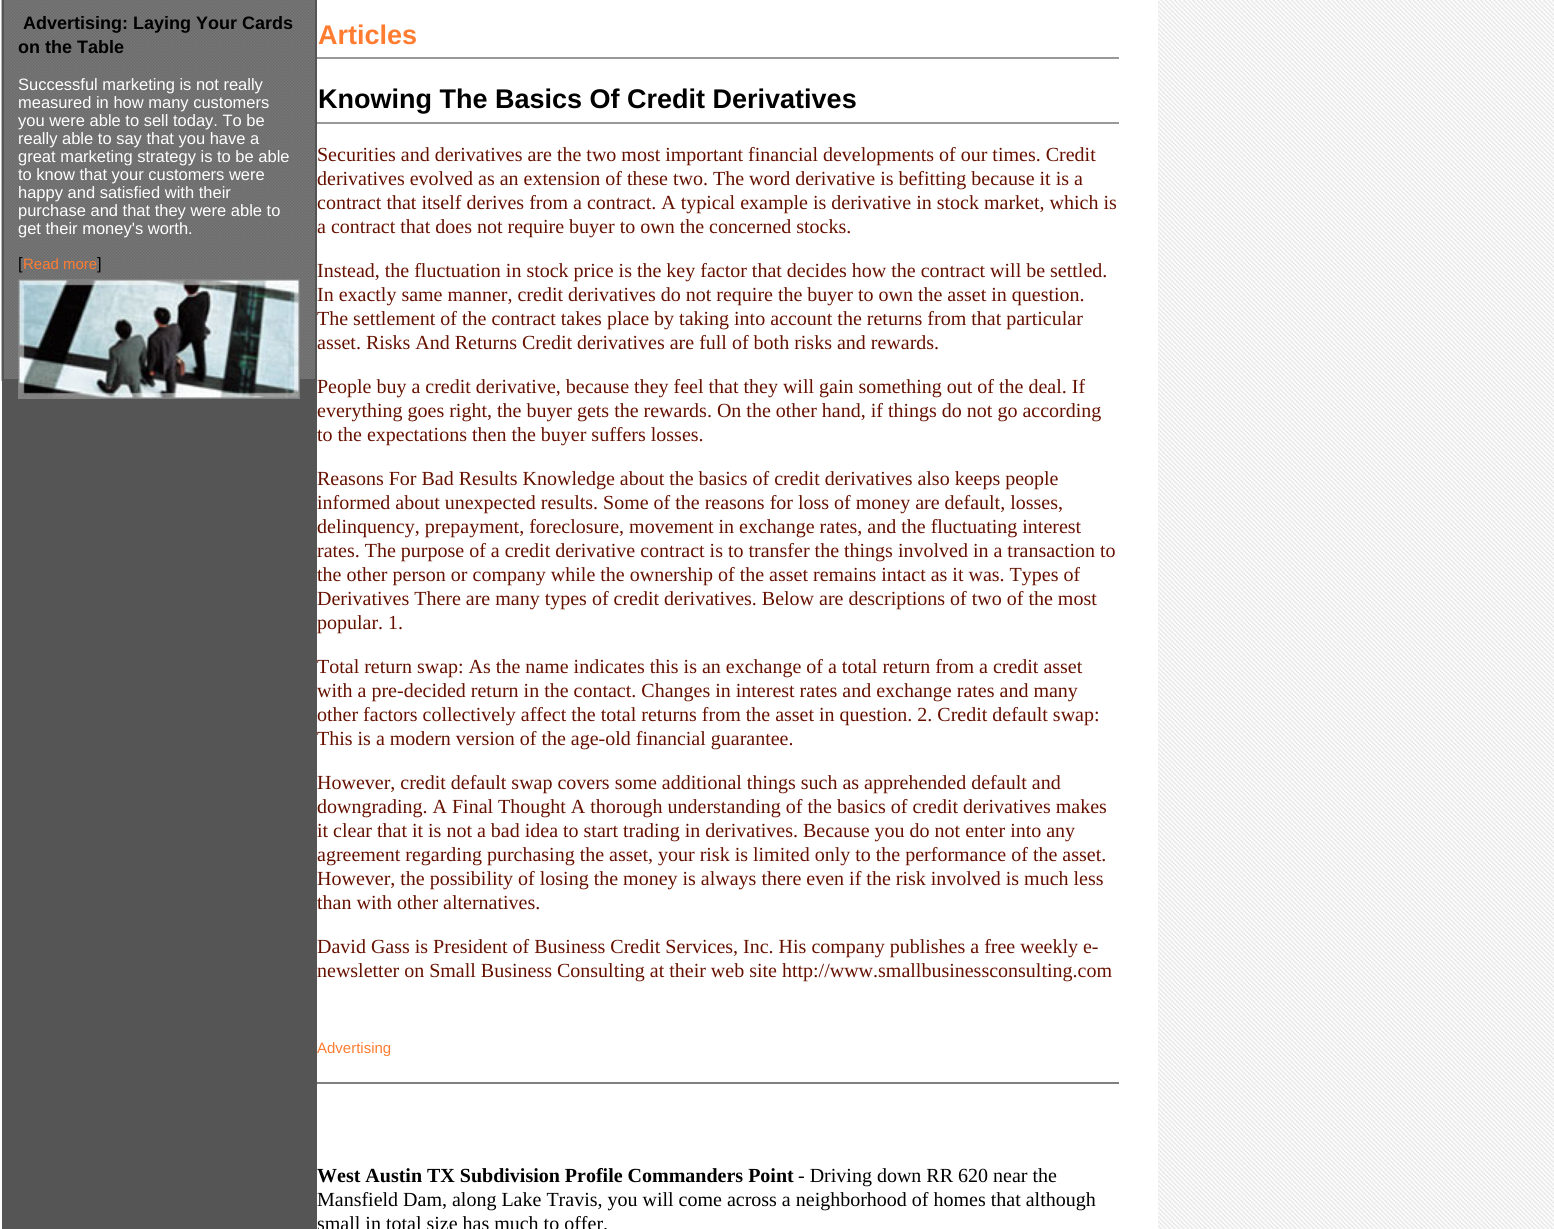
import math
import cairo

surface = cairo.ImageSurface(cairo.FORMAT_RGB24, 1554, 1229)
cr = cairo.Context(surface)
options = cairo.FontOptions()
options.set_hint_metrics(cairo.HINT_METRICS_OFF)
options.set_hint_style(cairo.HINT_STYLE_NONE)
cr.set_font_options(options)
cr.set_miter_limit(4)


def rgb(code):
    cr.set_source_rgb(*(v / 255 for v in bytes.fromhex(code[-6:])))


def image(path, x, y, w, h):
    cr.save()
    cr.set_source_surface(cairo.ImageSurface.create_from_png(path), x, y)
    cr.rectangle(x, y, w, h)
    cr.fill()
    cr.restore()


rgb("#ffffff")
cr.paint()
image("img/1.png", 1158, 0, 396, 1229)
rgb("#555555")
cr.rectangle(2, 381, 315, 848)
cr.fill()
image("img/2.png", 1, 0, 314, 381)
cr.rectangle(3, -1, 313, 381)
cr.stroke()
image("img/3.png", 18, 279, 282, 120)
for x, y, w, h, color in [
    (317, 57, 802, 2, "#999999"),
    (317, 122, 802, 2, "#999999"),
    (317, 1082, 802, 2, "#808080"),
]:
    rgb(color)
    cr.rectangle(x, y, w, h)
    cr.fill()
cr.select_font_face("Liberation Sans", cairo.FONT_SLANT_NORMAL, cairo.FONT_WEIGHT_BOLD)
cr.set_font_size(18)
rgb("#000000")
cr.move_to(23, 29)
cr.show_text("Advertising: Laying Your Cards")
cr.move_to(18, 53)
cr.show_text("on the Table")
cr.select_font_face("Liberation Sans")
cr.set_font_size(16.5)
rgb("#ffffff")
for x, y, s in [
    (18, 90, "Successful marketing is not really"),
    (18, 108, "measured in how many customers"),
    (18, 126, "you were able to sell today. To be"),
    (18, 144, "really able to say that you have a"),
    (18, 162, "great marketing strategy is to be able"),
    (18, 180, "to know that your customers were"),
    (18, 198, "happy and satisfied with their"),
    (18, 216, "purchase and that they were able to"),
    (18, 234, "get their money's worth."),
]:
    cr.move_to(x, y)
    cr.show_text(s)
rgb("#000000")
cr.move_to(18, 269)
cr.show_text("[")
cr.set_font_size(15)
rgb("#ff7c31")
cr.move_to(23, 269)
cr.show_text("Read more")
cr.set_font_size(16.5)
rgb("#000000")
cr.move_to(97, 269)
cr.show_text("]")
cr.select_font_face("Liberation Sans", cairo.FONT_SLANT_NORMAL, cairo.FONT_WEIGHT_BOLD)
cr.set_font_size(27)
rgb("#ff7c31")
cr.move_to(318, 44)
cr.show_text("Articles")
rgb("#000000")
cr.move_to(318, 108)
cr.show_text("Knowing The Basics Of Credit Derivatives")
cr.select_font_face("Liberation Serif")
cr.set_font_size(20)
rgb("#661100")
for x, y, s in [
    (317, 161, "Securities and derivatives are the two most important financial developments of our times. Credit"),
    (317, 185, "derivatives evolved as an extension of these two. The word derivative is befitting because it is a"),
    (317, 209, "contract that itself derives from a contract. A typical example is derivative in stock market, which is"),
    (317, 233, "a contract that does not require buyer to own the concerned stocks."),
    (317, 277, "Instead, the fluctuation in stock price is the key factor that decides how the contract will be settled."),
    (317, 301, "In exactly same manner, credit derivatives do not require the buyer to own the asset in question."),
]:
    cr.move_to(x, y)
    cr.show_text(s)
cr.save()
cr.rectangle(317, 0, 802, 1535)
cr.clip()
cr.move_to(317, 325)
cr.show_text("The settlement of the contract takes place by taking into account the returns from that particular")
cr.restore()
for x, y, s in [
    (317, 349, "asset. Risks And Returns Credit derivatives are full of both risks and rewards."),
    (317, 393, "People buy a credit derivative, because they feel that they will gain something out of the deal. If"),
    (317, 417, "everything goes right, the buyer gets the rewards. On the other hand, if things do not go according"),
    (317, 441, "to the expectations then the buyer suffers losses."),
    (317, 485, "Reasons For Bad Results Knowledge about the basics of credit derivatives also keeps people"),
    (317, 509, "informed about unexpected results. Some of the reasons for loss of money are default, losses,"),
    (317, 533, "delinquency, prepayment, foreclosure, movement in exchange rates, and the fluctuating interest"),
    (317, 557, "rates. The purpose of a credit derivative contract is to transfer the things involved in a transaction to"),
    (317, 581, "the other person or company while the ownership of the asset remains intact as it was. Types of"),
    (317, 605, "Derivatives There are many types of credit derivatives. Below are descriptions of two of the most"),
    (317, 629, "popular. 1."),
]:
    cr.move_to(x, y)
    cr.show_text(s)
cr.save()
cr.rectangle(317, 0, 802, 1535)
cr.clip()
cr.move_to(317, 673)
cr.show_text("Total return swap: As the name indicates this is an exchange of a total return from a credit asset")
cr.restore()
cr.move_to(317, 697)
cr.show_text("with a pre-decided return in the contact. Changes in interest rates and exchange rates and many")
cr.move_to(317, 721)
cr.show_text("other factors collectively affect the total returns from the asset in question. 2. Credit default swap:")
cr.save()
cr.rectangle(317, 0, 802, 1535)
cr.clip()
cr.move_to(317, 745)
cr.show_text("This is a modern version of the age-old financial guarantee.")
cr.restore()
for x, y, s in [
    (317, 789, "However, credit default swap covers some additional things such as apprehended default and"),
    (317, 813, "downgrading. A Final Thought A thorough understanding of the basics of credit derivatives makes"),
    (317, 837, "it clear that it is not a bad idea to start trading in derivatives. Because you do not enter into any"),
    (317, 861, "agreement regarding purchasing the asset, your risk is limited only to the performance of the asset."),
    (317, 885, "However, the possibility of losing the money is always there even if the risk involved is much less"),
    (317, 909, "than with other alternatives."),
    (317, 953, "David Gass is President of Business Credit Services, Inc. His company publishes a free weekly e-"),
    (317, 977, "newsletter on Small Business Consulting at their web site http://www.smallbusinessconsulting.com"),
]:
    cr.move_to(x, y)
    cr.show_text(s)
cr.select_font_face("Liberation Sans")
cr.set_font_size(15)
rgb("#ff7c31")
cr.move_to(317, 1053)
cr.show_text("Advertising")
cr.select_font_face("Liberation Serif", cairo.FONT_SLANT_NORMAL, cairo.FONT_WEIGHT_BOLD)
cr.set_font_size(20)
rgb("#000000")
cr.move_to(317, 1182)
cr.show_text("West Austin TX Subdivision Profile Commanders Point")
cr.select_font_face("Liberation Serif")
for x, y, s in [
    (798, 1182, "- Driving down RR 620 near the"),
    (317, 1206, "Mansfield Dam, along Lake Travis, you will come across a neighborhood of homes that although"),
    (317, 1230, "small in total size has much to offer."),
]:
    cr.move_to(x, y)
    cr.show_text(s)
surface.write_to_png("page.png")
